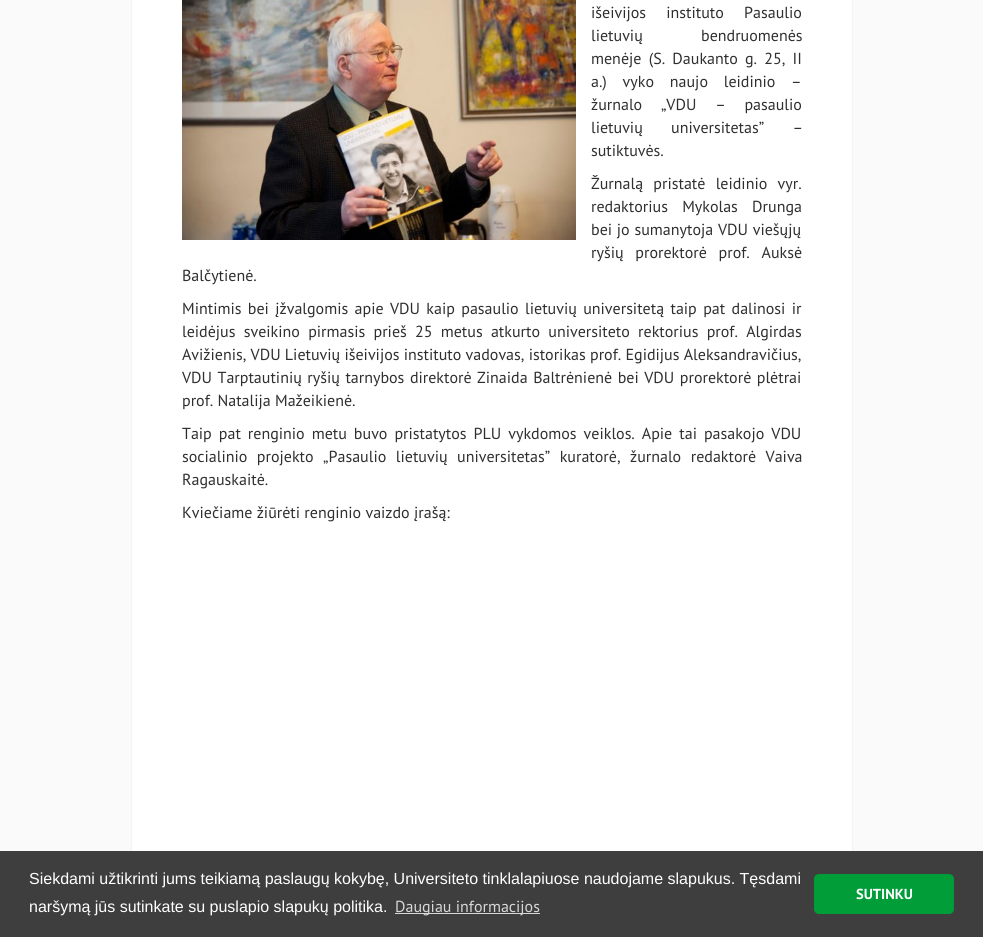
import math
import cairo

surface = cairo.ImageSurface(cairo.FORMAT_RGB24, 983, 937)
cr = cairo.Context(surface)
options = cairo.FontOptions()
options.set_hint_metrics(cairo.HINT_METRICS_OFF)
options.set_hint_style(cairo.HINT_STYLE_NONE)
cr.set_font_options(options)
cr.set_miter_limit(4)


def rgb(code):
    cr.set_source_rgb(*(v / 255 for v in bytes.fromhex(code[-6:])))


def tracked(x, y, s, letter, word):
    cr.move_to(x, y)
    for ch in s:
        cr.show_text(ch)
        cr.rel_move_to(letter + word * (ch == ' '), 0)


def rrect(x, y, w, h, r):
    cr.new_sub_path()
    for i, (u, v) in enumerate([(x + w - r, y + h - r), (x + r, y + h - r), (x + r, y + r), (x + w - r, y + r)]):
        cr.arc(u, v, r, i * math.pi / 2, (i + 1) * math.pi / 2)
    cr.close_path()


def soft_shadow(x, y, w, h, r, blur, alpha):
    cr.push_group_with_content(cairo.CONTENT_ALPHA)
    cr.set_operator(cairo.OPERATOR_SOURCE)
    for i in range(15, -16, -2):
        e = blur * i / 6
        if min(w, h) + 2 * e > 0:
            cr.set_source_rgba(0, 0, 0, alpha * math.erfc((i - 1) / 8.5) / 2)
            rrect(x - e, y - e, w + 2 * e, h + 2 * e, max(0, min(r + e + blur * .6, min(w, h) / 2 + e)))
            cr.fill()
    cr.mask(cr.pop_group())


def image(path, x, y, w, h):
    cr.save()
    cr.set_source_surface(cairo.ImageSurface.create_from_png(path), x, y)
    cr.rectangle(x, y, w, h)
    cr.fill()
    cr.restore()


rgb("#fafafa")
cr.paint()
rgb("#050505")
soft_shadow(132, -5, 720, 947, 0, 1.5, 0.08)
rgb("#ffffff")
cr.rectangle(132, 0, 720, 851)
cr.fill()
image("img/1.png", 182, 0, 394, 240)
rgb("#3e3e3e")
cr.rectangle(0, 851, 983, 86)
cr.fill()
rgb("#d8d8d8")
cr.rectangle(395, 913, 145, 1)
cr.fill()
rgb("#009d38")
rrect(814, 874, 140, 40, 5)
cr.fill()
cr.select_font_face("PT Sans")
cr.set_font_size(16)
rgb("#2f2f2f")
tracked(591, 18, "išeivijos instituto Pasaulio", 0, 16)
tracked(591, 41, "lietuvių bendruomenės", 0, 54)
tracked(591, 64, "menėje (S. Daukanto g. 25, II", 0, 3)
tracked(591, 87, "a.) vyko naujo leidinio –", 0, 11.5)
tracked(591, 110, "žurnalo „VDU – pasaulio", 0, 14.5)
tracked(591, 133, "lietuvių universitetas” –", 0, 24)
cr.move_to(591, 156)
cr.show_text("sutiktuvės.")
tracked(591, 189, "Žurnalą pristatė leidinio vyr.", 0, 6)
tracked(591, 212, "redaktorius Mykolas Drunga", 0, 10)
tracked(591, 235, "bei jo sumanytoja VDU viešųjų", 0, 0.5)
tracked(591, 258, "ryšių prorektorė prof. Auksė", 0, 7.5)
cr.move_to(182, 281)
cr.show_text("Balčytienė.")
tracked(182, 314, "Mintimis bei įžvalgomis apie VDU kaip pasaulio lietuvių universitetą taip pat dalinosi ir", 0, 2.1)
tracked(182, 337, "leidėjus sveikino pirmasis prieš 25 metus atkurto universiteto rektorius prof. Algirdas", 0, 4)
cr.move_to(182, 360)
cr.show_text("Avižienis, VDU Lietuvių išeivijos instituto vadovas, istorikas prof. Egidijus Aleksandravičius,")
tracked(182, 383, "VDU Tarptautinių ryšių tarnybos direktorė Zinaida Baltrėnienė bei VDU prorektorė plėtrai", 0, 1.25)
cr.move_to(182, 406)
cr.show_text("prof. Natalija Mažeikienė.")
tracked(182, 439, "Taip pat renginio metu buvo pristatytos PLU vykdomos veiklos. Apie tai pasakojo VDU", 0, 2.75)
tracked(182, 462, "socialinio projekto „Pasaulio lietuvių universitetas” kuratorė, žurnalo redaktorė Vaiva", 0, 5.25)
cr.move_to(182, 485)
cr.show_text("Ragauskaitė.")
cr.move_to(182, 518)
cr.show_text("Kviečiame žiūrėti renginio vaizdo įrašą:")
cr.select_font_face("Liberation Sans")
rgb("#ffffff")
cr.move_to(29, 884)
cr.show_text("Siekdami užtikrinti jums teikiamą paslaugų kokybę, Universiteto tinklalapiuose naudojame slapukus. Tęsdami")
cr.move_to(29, 912)
cr.show_text("naršymą jūs sutinkate su puslapio slapukų politika.")
cr.select_font_face("PT Sans")
rgb("#d8d8d8")
cr.move_to(395, 912)
cr.show_text("Daugiau informacijos")
cr.select_font_face("PT Sans", cairo.FONT_SLANT_NORMAL, cairo.FONT_WEIGHT_BOLD)
cr.set_font_size(14.5)
rgb("#ffffff")
cr.move_to(856, 899)
cr.show_text("SUTINKU")
surface.write_to_png("page.png")
